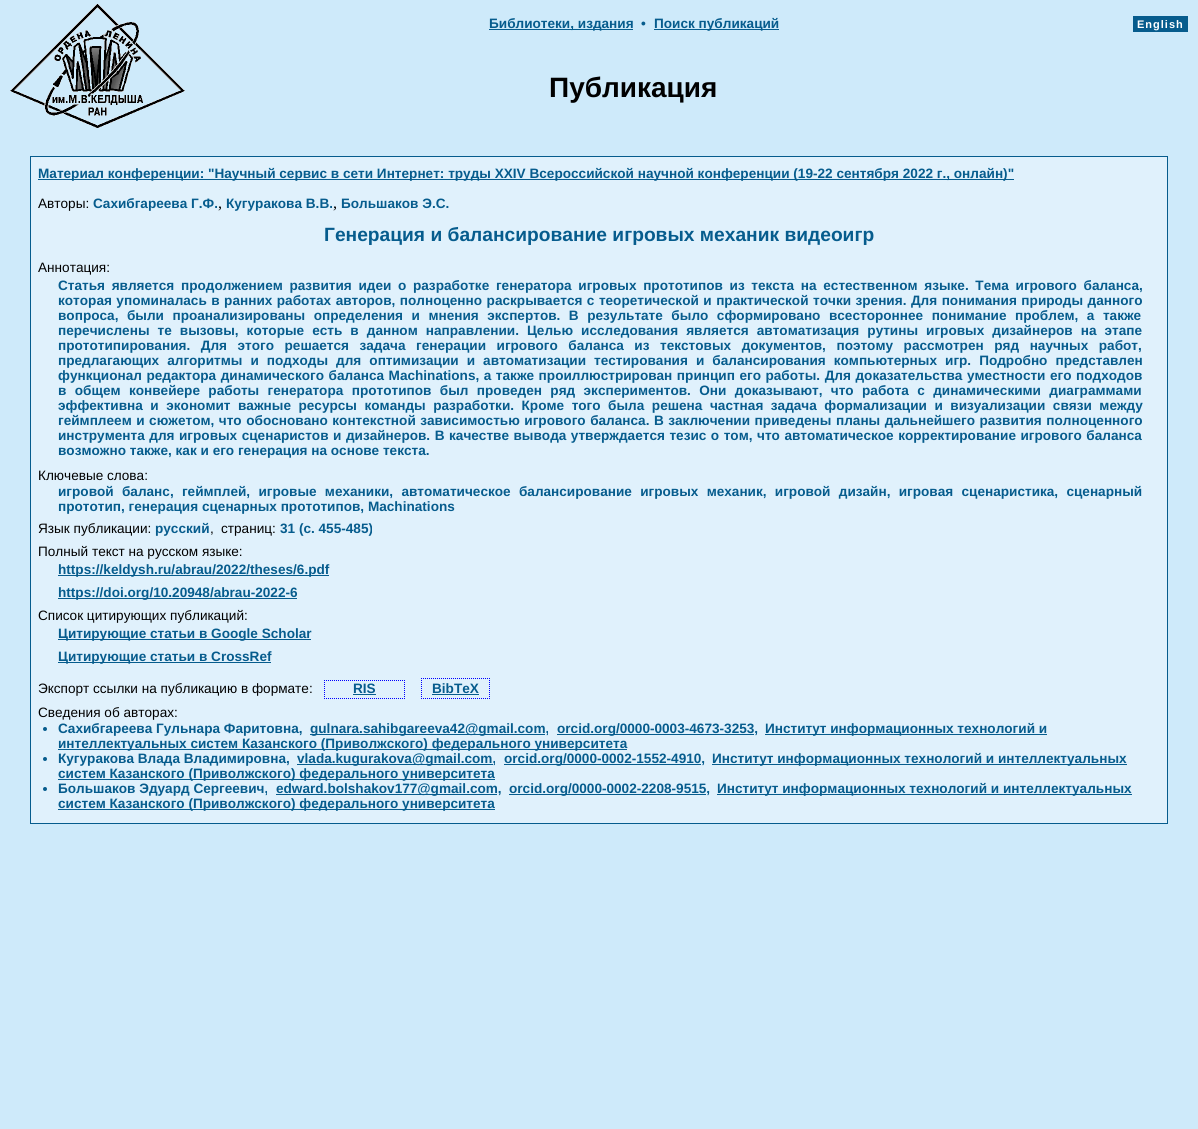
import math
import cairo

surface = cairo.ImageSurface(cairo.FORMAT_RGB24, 1198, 1129)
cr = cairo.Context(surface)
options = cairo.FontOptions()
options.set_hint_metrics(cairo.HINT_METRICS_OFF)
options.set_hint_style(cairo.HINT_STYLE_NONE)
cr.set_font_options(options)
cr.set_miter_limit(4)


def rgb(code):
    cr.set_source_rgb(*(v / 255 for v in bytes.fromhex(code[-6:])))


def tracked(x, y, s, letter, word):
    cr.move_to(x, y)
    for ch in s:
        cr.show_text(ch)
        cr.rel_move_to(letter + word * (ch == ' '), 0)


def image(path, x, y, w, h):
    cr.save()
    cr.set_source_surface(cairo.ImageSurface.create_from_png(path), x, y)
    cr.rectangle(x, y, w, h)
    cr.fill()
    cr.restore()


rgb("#ceeafa")
cr.paint()
image("img/1.png", 10, 4, 175, 124)
for x, y, w, h, color in [
    (489, 29, 144, 1, "#065c8d"),
    (654, 29, 125, 1, "#065c8d"),
    (1133, 16, 55, 16, "#065c8d"),
    (30, 156, 1138, 668, "#065c8d"),
    (31, 157, 1136, 666, "#e0f1fc"),
    (38, 179, 976, 1, "#065c8d"),
    (58, 575, 271, 1, "#065c8d"),
    (58, 598, 239, 1, "#065c8d"),
    (58, 639, 253, 1, "#065c8d"),
    (58, 662, 213, 1, "#065c8d"),
]:
    rgb(color)
    cr.rectangle(x, y, w, h)
    cr.fill()
cr.new_path()
cr.move_to(324, 680.5)
cr.line_to(405, 680.5)
rgb("#0000ff")
cr.set_line_width(1)
cr.set_dash([1, 1])
cr.stroke()
cr.new_path()
cr.move_to(404.5, 680)
cr.line_to(404.5, 699)
cr.stroke()
cr.new_path()
cr.move_to(324, 698.5)
cr.line_to(405, 698.5)
cr.stroke()
cr.new_path()
cr.move_to(324.5, 680)
cr.line_to(324.5, 699)
cr.stroke()
rgb("#065c8d")
cr.rectangle(353, 694, 23, 1)
cr.fill()
cr.new_path()
cr.move_to(421, 678.5)
cr.line_to(490, 678.5)
rgb("#0000ff")
cr.stroke()
cr.new_path()
cr.move_to(489.5, 678)
cr.line_to(489.5, 699)
cr.stroke()
cr.new_path()
cr.move_to(421, 698.5)
cr.line_to(490, 698.5)
cr.stroke()
cr.new_path()
cr.move_to(421.5, 678)
cr.line_to(421.5, 699)
cr.stroke()
rgb("#065c8d")
cr.rectangle(432, 694, 47, 1)
cr.fill()
cr.arc(45, 729, 2, 0, 2 * math.pi)
cr.fill()
for x, y, w, h, color in [
    (310, 734, 235, 1, "#065c8d"),
    (557, 734, 197, 1, "#065c8d"),
    (765, 734, 282, 1, "#065c8d"),
    (58, 749, 569, 1, "#065c8d"),
]:
    rgb(color)
    cr.rectangle(x, y, w, h)
    cr.fill()
cr.arc(45, 759, 2, 0, 2 * math.pi)
cr.fill()
for x, y, w, h, color in [
    (297, 764, 196, 1, "#065c8d"),
    (504, 764, 197, 1, "#065c8d"),
    (712, 764, 415, 1, "#065c8d"),
    (58, 779, 437, 1, "#065c8d"),
]:
    rgb(color)
    cr.rectangle(x, y, w, h)
    cr.fill()
cr.arc(45, 789, 2, 0, 2 * math.pi)
cr.fill()
for x, y, w, h, color in [
    (276, 794, 221, 1, "#065c8d"),
    (509, 794, 197, 1, "#065c8d"),
    (717, 794, 415, 1, "#065c8d"),
    (58, 809, 437, 1, "#065c8d"),
]:
    rgb(color)
    cr.rectangle(x, y, w, h)
    cr.fill()
cr.select_font_face("Liberation Sans", cairo.FONT_SLANT_NORMAL, cairo.FONT_WEIGHT_BOLD)
cr.set_font_size(13.6)
for x, y, s in [
    (489, 28, "Библиотеки, издания"),
    (641, 28, "•"),
    (654, 28, "Поиск публикаций"),
]:
    cr.move_to(x, y)
    cr.show_text(s)
cr.set_font_size(11)
rgb("#ffffff")
tracked(1137, 28, "English", 1, 0)
cr.set_font_size(28)
rgb("#000000")
cr.move_to(549, 97)
cr.show_text("Публикация")
cr.set_font_size(13.6)
rgb("#065c8d")
cr.move_to(38, 178)
cr.show_text("Материал конференции: \"Научный сервис в сети Интернет: труды XXIV Всероссийской научной конференции (19-22 сентября 2022 г., онлайн)\"")
cr.select_font_face("Liberation Sans")
rgb("#000000")
cr.move_to(38, 208)
cr.show_text("Авторы:")
cr.select_font_face("Liberation Sans", cairo.FONT_SLANT_NORMAL, cairo.FONT_WEIGHT_BOLD)
rgb("#065c8d")
cr.move_to(93, 208)
cr.show_text("Сахибгареева Г.Ф.")
cr.select_font_face("Liberation Serif")
cr.set_font_size(16)
rgb("#000000")
cr.move_to(218, 208)
cr.show_text(",")
cr.select_font_face("Liberation Sans", cairo.FONT_SLANT_NORMAL, cairo.FONT_WEIGHT_BOLD)
cr.set_font_size(13.6)
rgb("#065c8d")
cr.move_to(226, 208)
cr.show_text("Кугуракова В.В.")
cr.select_font_face("Liberation Serif")
cr.set_font_size(16)
rgb("#000000")
cr.move_to(333, 208)
cr.show_text(",")
cr.select_font_face("Liberation Sans", cairo.FONT_SLANT_NORMAL, cairo.FONT_WEIGHT_BOLD)
cr.set_font_size(13.6)
rgb("#065c8d")
cr.move_to(341, 208)
cr.show_text("Большаков Э.С.")
cr.set_font_size(19.2)
cr.move_to(324, 241)
cr.show_text("Генерация и балансирование игровых механик видеоигр")
cr.select_font_face("Liberation Sans")
cr.set_font_size(13.6)
rgb("#000000")
cr.move_to(38, 272)
cr.show_text("Аннотация:")
cr.select_font_face("Liberation Sans", cairo.FONT_SLANT_NORMAL, cairo.FONT_WEIGHT_BOLD)
rgb("#065c8d")
tracked(58, 290, "Статья является продолжением развития идеи о разработке генератора игровых прототипов из текста на естественном языке. Тема игрового баланса,", 0, 2.9)
tracked(58, 305, "которая упоминалась в ранних работах авторов, полноценно раскрывается с теоретической и практической точки зрения. Для понимания природы данного", 0, 0.7)
tracked(58, 320, "вопроса, были проанализированы определения и мнения экспертов. В результате было сформировано всестороннее понимание проблем, а также", 0, 4.75)
tracked(58, 335, "перечислены те вызовы, которые есть в данном направлении. Целью исследования является автоматизация рутины игровых дизайнеров на этапе", 0, 4.25)
tracked(58, 350, "прототипирования. Для этого решается задача генерации игрового баланса из текстовых документов, поэтому рассмотрен ряд научных работ,", 0, 6.75)
tracked(58, 365, "предлагающих алгоритмы и подходы для оптимизации и автоматизации тестирования и балансирования компьютерных игр. Подробно представлен", 0, 4.25)
tracked(58, 380, "функционал редактора динамического баланса Machinations, а также проиллюстрирован принцип его работы. Для доказательства уместности его подходов", 0, 0.75)
tracked(58, 395, "в общем конвейере работы генератора прототипов был проведен ряд экспериментов. Они доказывают, что работа с динамическими диаграммами", 0, 4.6)
tracked(58, 410, "эффективна и экономит важные ресурсы команды разработки. Кроме того была решена частная задача формализации и визуализации связи между", 0, 3.75)
tracked(58, 425, "геймплеем и сюжетом, что обосновано контекстной зависимостью игрового баланса. В заключении приведены планы дальнейшего развития полноценного", 0, 0.75)
tracked(58, 440, "инструмента для игровых сценаристов и дизайнеров. В качестве вывода утверждается тезис о том, что автоматическое корректирование игрового баланса", 0, 0.75)
cr.move_to(58, 455)
cr.show_text("возможно также, как и его генерация на основе текста.")
cr.select_font_face("Liberation Sans")
rgb("#000000")
cr.move_to(38, 480)
cr.show_text("Ключевые слова:")
cr.select_font_face("Liberation Sans", cairo.FONT_SLANT_NORMAL, cairo.FONT_WEIGHT_BOLD)
rgb("#065c8d")
tracked(58, 496, "игровой баланс, геймплей, игровые механики, автоматическое балансирование игровых механик, игровой дизайн, игровая сценаристика, сценарный", 0, 4.5)
cr.move_to(58, 511)
cr.show_text("прототип, генерация сценарных прототипов, Machinations")
cr.select_font_face("Liberation Sans")
rgb("#000000")
cr.move_to(38, 533)
cr.show_text("Язык публикации:")
cr.select_font_face("Liberation Sans", cairo.FONT_SLANT_NORMAL, cairo.FONT_WEIGHT_BOLD)
rgb("#065c8d")
cr.move_to(155, 533)
cr.show_text("русский")
cr.select_font_face("Liberation Sans")
rgb("#000000")
cr.move_to(210, 533)
cr.show_text(",")
cr.move_to(221, 533)
cr.show_text("страниц:")
cr.select_font_face("Liberation Sans", cairo.FONT_SLANT_NORMAL, cairo.FONT_WEIGHT_BOLD)
rgb("#065c8d")
cr.move_to(280, 533)
cr.show_text("31 (с. 455-485)")
cr.select_font_face("Liberation Sans")
rgb("#000000")
cr.move_to(38, 556)
cr.show_text("Полный текст на русском языке:")
cr.select_font_face("Liberation Sans", cairo.FONT_SLANT_NORMAL, cairo.FONT_WEIGHT_BOLD)
rgb("#065c8d")
cr.move_to(58, 574)
cr.show_text("https://keldysh.ru/abrau/2022/theses/6.pdf")
cr.move_to(58, 597)
cr.show_text("https://doi.org/10.20948/abrau-2022-6")
cr.select_font_face("Liberation Sans")
rgb("#000000")
cr.move_to(38, 620)
cr.show_text("Список цитирующих публикаций:")
cr.select_font_face("Liberation Sans", cairo.FONT_SLANT_NORMAL, cairo.FONT_WEIGHT_BOLD)
rgb("#065c8d")
cr.move_to(58, 638)
cr.show_text("Цитирующие статьи в Google Scholar")
cr.move_to(58, 661)
cr.show_text("Цитирующие статьи в CrossRef")
cr.select_font_face("Liberation Sans")
rgb("#000000")
cr.move_to(38, 693)
cr.show_text("Экспорт ссылки на публикацию в формате:")
cr.select_font_face("Liberation Sans", cairo.FONT_SLANT_NORMAL, cairo.FONT_WEIGHT_BOLD)
rgb("#065c8d")
cr.move_to(353, 693)
cr.show_text("RIS")
cr.move_to(432, 693)
cr.show_text("BibTeX")
cr.select_font_face("Liberation Sans")
rgb("#000000")
cr.move_to(38, 717)
cr.show_text("Сведения об авторах:")
cr.select_font_face("Liberation Sans", cairo.FONT_SLANT_NORMAL, cairo.FONT_WEIGHT_BOLD)
rgb("#065c8d")
for x, y, s in [
    (58, 733, "Сахибгареева Гульнара Фаритовна,"),
    (310, 733, "gulnara.sahibgareeva42@gmail.com,"),
    (557, 733, "orcid.org/0000-0003-4673-3253,"),
    (765, 733, "Институт информационных технологий и"),
    (58, 748, "интеллектуальных систем Казанского (Приволжского) федерального университета"),
    (58, 763, "Кугуракова Влада Владимировна,"),
    (297, 763, "vlada.kugurakova@gmail.com,"),
    (504, 763, "orcid.org/0000-0002-1552-4910,"),
    (712, 763, "Институт информационных технологий и интеллектуальных"),
    (58, 778, "систем Казанского (Приволжского) федерального университета"),
    (58, 793, "Большаков Эдуард Сергеевич,"),
    (276, 793, "edward.bolshakov177@gmail.com,"),
    (509, 793, "orcid.org/0000-0002-2208-9515,"),
    (717, 793, "Институт информационных технологий и интеллектуальных"),
    (58, 808, "систем Казанского (Приволжского) федерального университета"),
]:
    cr.move_to(x, y)
    cr.show_text(s)
surface.write_to_png("page.png")
